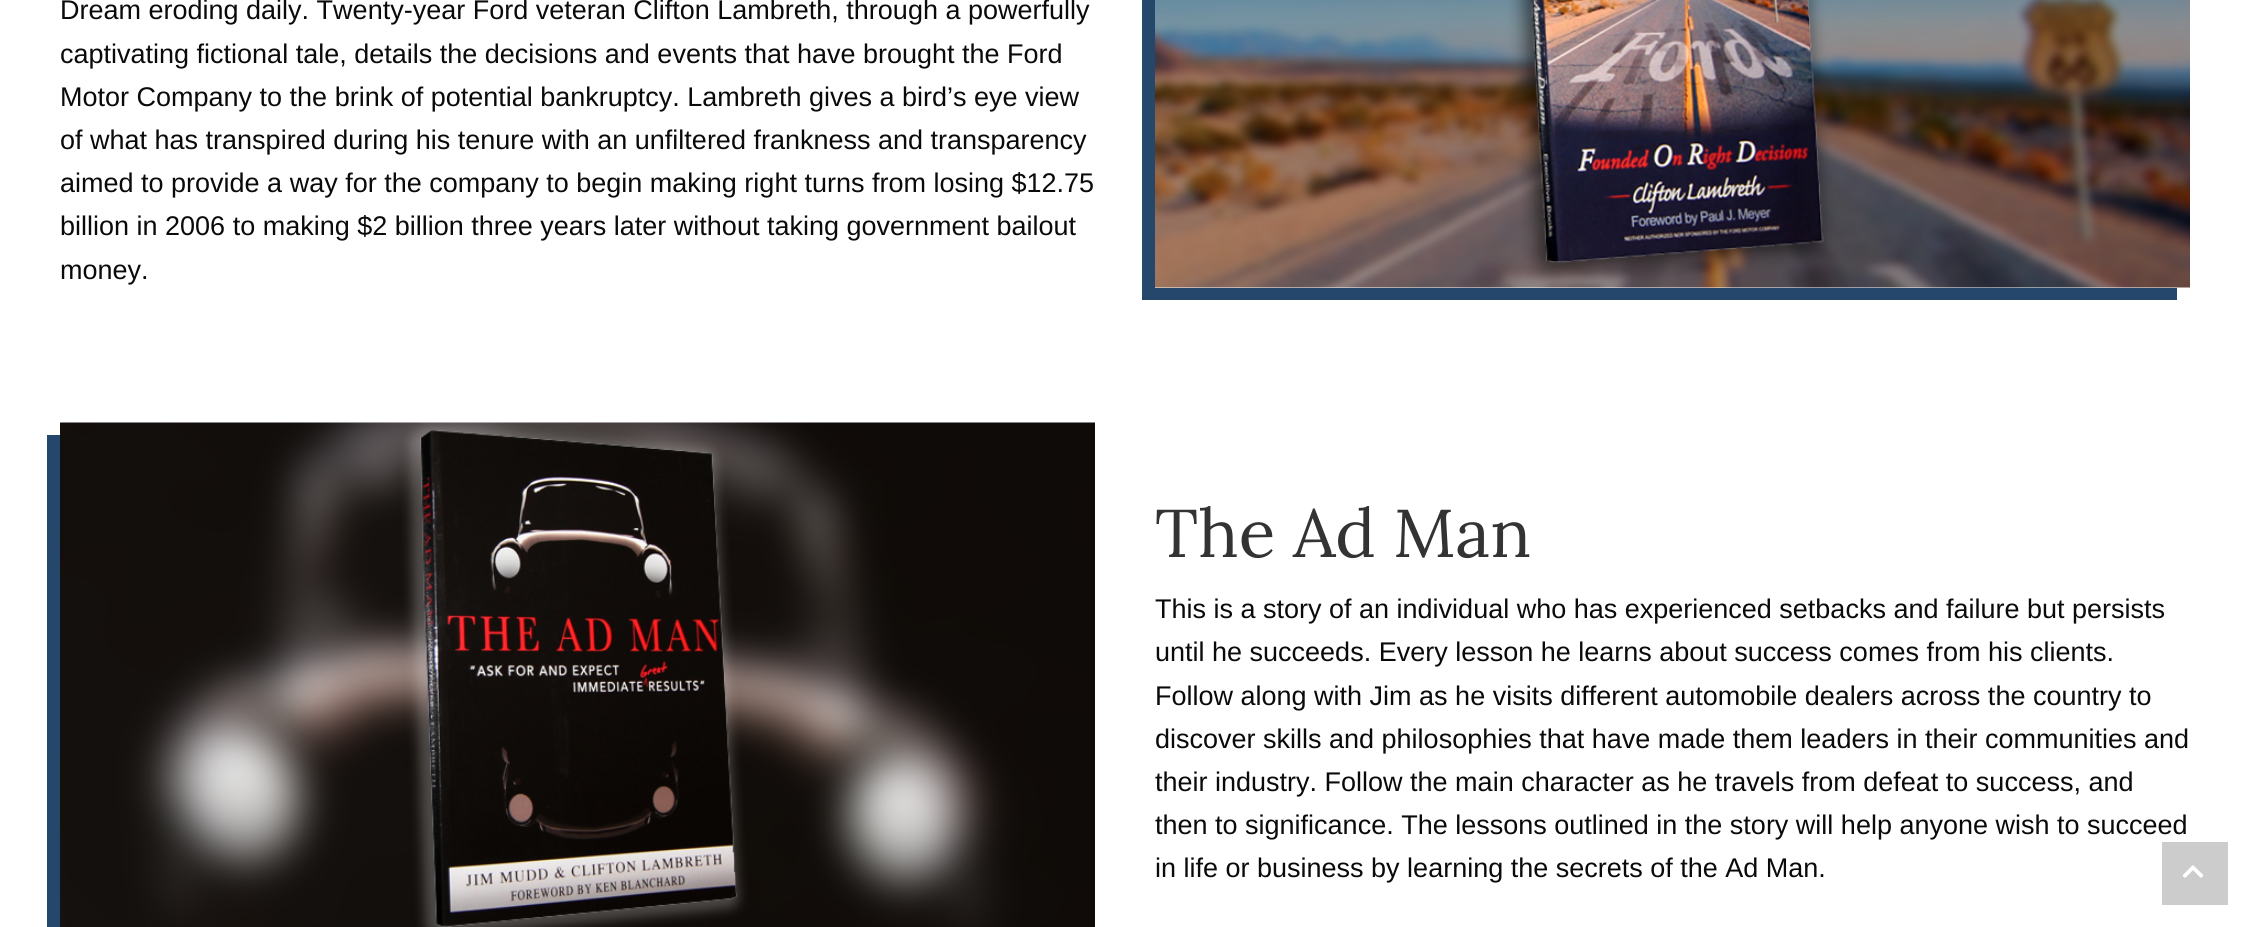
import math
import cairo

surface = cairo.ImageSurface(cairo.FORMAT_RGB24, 2250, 927)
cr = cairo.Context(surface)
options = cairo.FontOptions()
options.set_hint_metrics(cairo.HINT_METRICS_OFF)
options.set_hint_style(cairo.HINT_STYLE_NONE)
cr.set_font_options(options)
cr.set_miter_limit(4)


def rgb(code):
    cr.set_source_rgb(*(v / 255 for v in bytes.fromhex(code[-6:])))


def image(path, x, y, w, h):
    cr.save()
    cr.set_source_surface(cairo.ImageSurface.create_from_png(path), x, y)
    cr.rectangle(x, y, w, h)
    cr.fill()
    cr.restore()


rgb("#ffffff")
cr.paint()
rgb("#24476b")
cr.new_path()
cr.move_to(1142, -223)
cr.line_to(1142, 300)
cr.line_to(2177, 300)
cr.line_to(2177, 288)
cr.line_to(1155, 288)
cr.line_to(1155, -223)
cr.close_path()
cr.fill()
image("img/1.png", 1155, 0, 1035, 288)
cr.new_path()
cr.move_to(47, 435)
cr.line_to(47, 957)
cr.line_to(1082, 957)
cr.line_to(1082, 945)
cr.line_to(60, 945)
cr.line_to(60, 435)
cr.close_path()
cr.fill()
image("img/2.png", 60, 422, 1035, 505)
rgb("#cccccc")
cr.rectangle(2162, 842, 66, 63)
cr.fill()
image("img/3.png", 2182, 865, 22, 13)
cr.select_font_face("Liberation Sans")
cr.set_font_size(27)
rgb("#0a0a0a")
for x, y, s in [
    (60, 19, "Dream eroding daily. Twenty-year Ford veteran Clifton Lambreth, through a powerfully"),
    (60, 63, "captivating fictional tale, details the decisions and events that have brought the Ford"),
    (60, 106, "Motor Company to the brink of potential bankruptcy. Lambreth gives a bird’s eye view"),
    (60, 149, "of what has transpired during his tenure with an unfiltered frankness and transparency"),
    (60, 192, "aimed to provide a way for the company to begin making right turns from losing $12.75"),
    (60, 235, "billion in 2006 to making $2 billion three years later without taking government bailout"),
    (60, 279, "money."),
]:
    cr.move_to(x, y)
    cr.show_text(s)
cr.select_font_face("Lora")
cr.set_font_size(67.5)
rgb("#333333")
cr.move_to(1155, 557)
cr.show_text("The Ad Man")
cr.select_font_face("Liberation Sans")
cr.set_font_size(27)
rgb("#0a0a0a")
for x, y, s in [
    (1155, 618, "This is a story of an individual who has experienced setbacks and failure but persists"),
    (1155, 661, "until he succeeds. Every lesson he learns about success comes from his clients."),
    (1155, 705, "Follow along with Jim as he visits different automobile dealers across the country to"),
    (1155, 748, "discover skills and philosophies that have made them leaders in their communities and"),
    (1155, 791, "their industry. Follow the main character as he travels from defeat to success, and"),
    (1155, 834, "then to significance. The lessons outlined in the story will help anyone wish to succeed"),
    (1155, 877, "in life or business by learning the secrets of the Ad Man."),
]:
    cr.move_to(x, y)
    cr.show_text(s)
surface.write_to_png("page.png")
